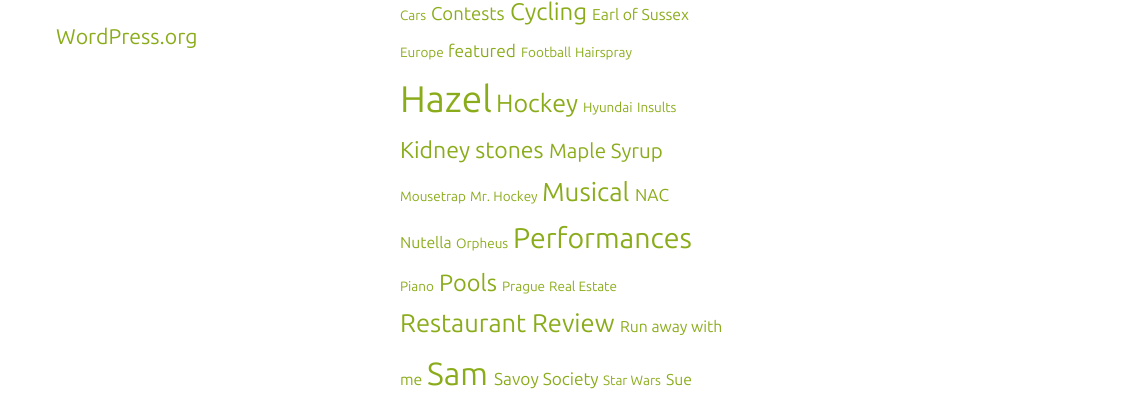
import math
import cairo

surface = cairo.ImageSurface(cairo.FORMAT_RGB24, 1123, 411)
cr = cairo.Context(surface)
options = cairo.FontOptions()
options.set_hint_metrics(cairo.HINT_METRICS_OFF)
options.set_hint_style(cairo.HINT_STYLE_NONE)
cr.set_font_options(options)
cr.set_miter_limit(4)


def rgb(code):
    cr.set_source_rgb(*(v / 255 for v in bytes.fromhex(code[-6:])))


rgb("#ffffff")
cr.paint()
cr.select_font_face("Ubuntu")
cr.set_font_size(21.25)
rgb("#8aac1a")
cr.move_to(56, 44)
cr.show_text("WordPress.org")
cr.set_font_size(13.5)
cr.move_to(400, 20)
cr.show_text("Cars")
cr.set_font_size(18.5)
cr.move_to(431, 20)
cr.show_text("Contests")
cr.set_font_size(24)
cr.move_to(510, 20)
cr.show_text("Cycling")
cr.set_font_size(15.75)
cr.move_to(592, 20)
cr.show_text("Earl of Sussex")
cr.set_font_size(13.5)
cr.move_to(400, 57)
cr.show_text("Europe")
cr.set_font_size(17.25)
cr.move_to(448, 57)
cr.show_text("featured")
cr.set_font_size(13.5)
cr.move_to(521, 57)
cr.show_text("Football")
cr.move_to(575, 57)
cr.show_text("Hairspray")
cr.set_font_size(37)
cr.move_to(400, 112)
cr.show_text("Hazel")
cr.set_font_size(25)
cr.move_to(496, 112)
cr.show_text("Hockey")
cr.set_font_size(13.5)
cr.move_to(583, 112)
cr.show_text("Hyundai")
cr.move_to(637, 112)
cr.show_text("Insults")
cr.set_font_size(23)
cr.move_to(400, 158)
cr.show_text("Kidney stones")
cr.set_font_size(20.5)
cr.move_to(549, 158)
cr.show_text("Maple Syrup")
cr.set_font_size(13.5)
cr.move_to(400, 201)
cr.show_text("Mousetrap")
cr.move_to(470, 201)
cr.show_text("Mr. Hockey")
cr.set_font_size(26)
cr.move_to(542, 201)
cr.show_text("Musical")
cr.set_font_size(17.25)
cr.move_to(635, 201)
cr.show_text("NAC")
cr.set_font_size(15.75)
cr.move_to(400, 248)
cr.show_text("Nutella")
cr.set_font_size(13.5)
cr.move_to(456, 248)
cr.show_text("Orpheus")
cr.set_font_size(28.5)
cr.move_to(513, 248)
cr.show_text("Performances")
cr.set_font_size(13.5)
cr.move_to(400, 291)
cr.show_text("Piano")
cr.set_font_size(23.5)
cr.move_to(439, 291)
cr.show_text("Pools")
cr.set_font_size(13.5)
cr.move_to(502, 291)
cr.show_text("Prague")
cr.move_to(549, 291)
cr.show_text("Real Estate")
cr.set_font_size(25.5)
cr.move_to(400, 332)
cr.show_text("Restaurant Review")
cr.set_font_size(15.75)
cr.move_to(620, 332)
cr.show_text("Run away with")
cr.move_to(400, 385)
cr.show_text("me")
cr.set_font_size(32)
cr.move_to(427, 385)
cr.show_text("Sam")
cr.set_font_size(17.25)
cr.move_to(494, 385)
cr.show_text("Savoy Society")
cr.set_font_size(13.5)
cr.move_to(603, 385)
cr.show_text("Star Wars")
cr.set_font_size(15.75)
cr.move_to(666, 385)
cr.show_text("Sue")
surface.write_to_png("page.png")
